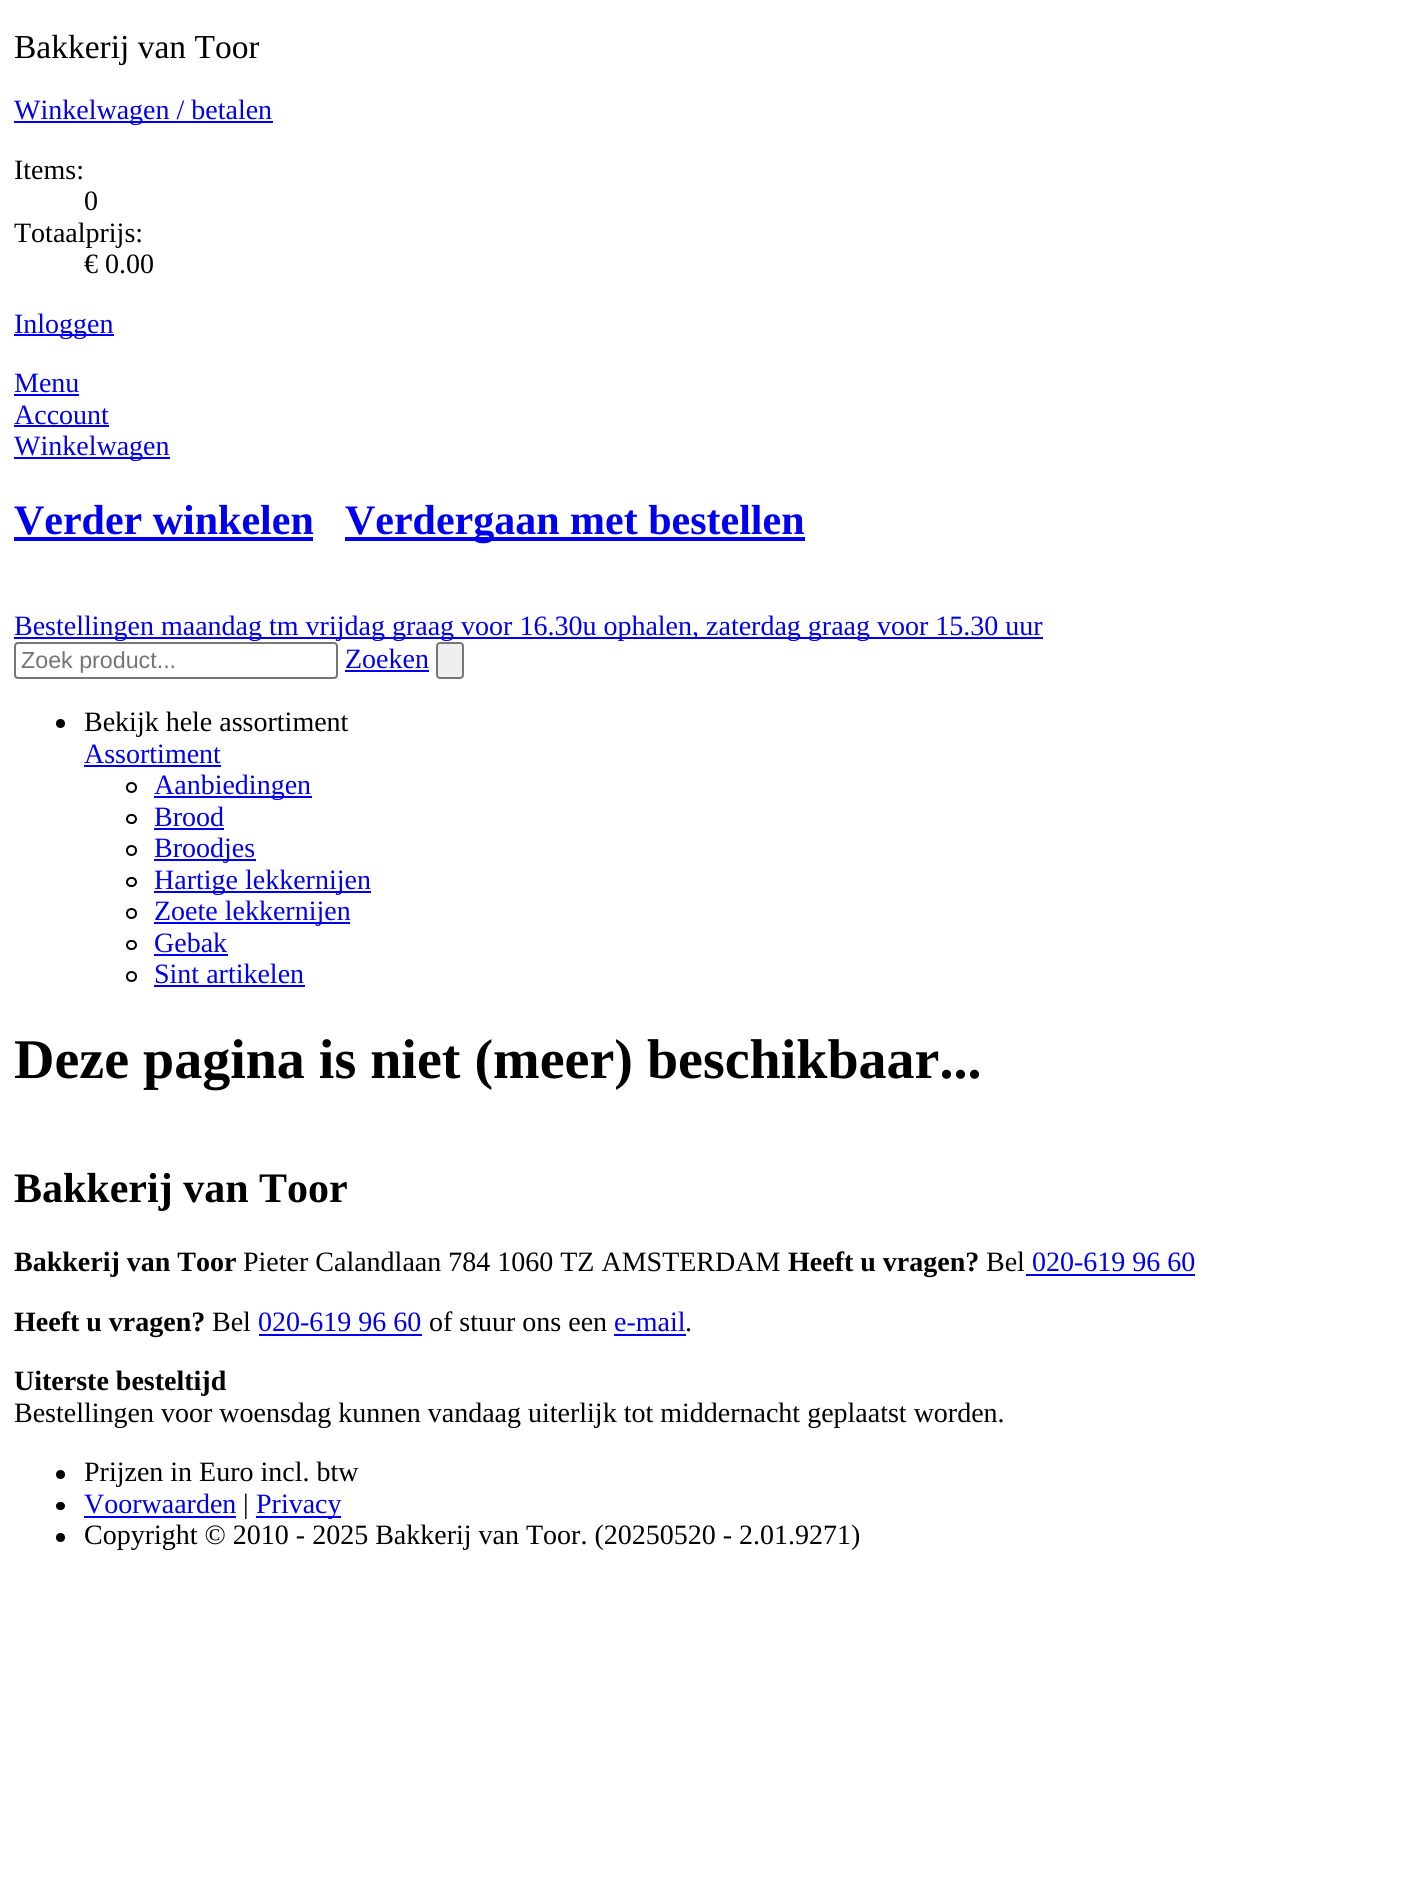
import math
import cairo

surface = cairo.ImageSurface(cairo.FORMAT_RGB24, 1422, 1882)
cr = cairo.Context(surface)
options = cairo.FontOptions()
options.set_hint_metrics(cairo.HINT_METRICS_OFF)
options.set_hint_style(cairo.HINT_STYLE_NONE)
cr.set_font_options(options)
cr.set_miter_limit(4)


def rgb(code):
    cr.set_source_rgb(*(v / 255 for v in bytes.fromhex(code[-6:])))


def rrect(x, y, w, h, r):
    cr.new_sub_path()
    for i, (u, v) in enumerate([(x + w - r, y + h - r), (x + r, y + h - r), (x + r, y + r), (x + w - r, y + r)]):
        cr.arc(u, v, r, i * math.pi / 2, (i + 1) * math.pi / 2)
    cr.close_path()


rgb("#ffffff")
cr.paint()
for x, y, w, h, color in [
    (14, 121, 259, 2, "#0000ee"),
    (14, 334, 100, 2, "#0000ee"),
    (14, 394, 65, 2, "#0000ee"),
    (14, 425, 95, 2, "#0000ee"),
    (14, 457, 156, 2, "#0000ee"),
    (14, 537, 299, 4, "#0000ee"),
    (345, 537, 460, 4, "#0000ee"),
    (14, 637, 1029, 2, "#0000ee"),
]:
    rgb(color)
    cr.rectangle(x, y, w, h)
    cr.fill()
rrect(15, 643, 322, 35, 3)
rgb("#767676")
cr.stroke()
rgb("#0000ee")
cr.rectangle(345, 670, 84, 2)
cr.fill()
rgb("#efefef")
rrect(437, 643, 26, 35, 3)
cr.fill_preserve()
rgb("#767676")
cr.stroke()
rgb("#000000")
cr.arc(60.5, 723.5, 4.5, 0, 2 * math.pi)
cr.fill()
rgb("#0000ee")
cr.rectangle(84, 765, 137, 2)
cr.fill()
cr.arc(131.5, 787.5, 4.5, 0, 2 * math.pi)
rgb("#000000")
cr.stroke()
rgb("#0000ee")
cr.rectangle(154, 796, 158, 2)
cr.fill()
rrect(127, 815, 9, 8, 4)
rgb("#000000")
cr.stroke()
rgb("#0000ee")
cr.rectangle(154, 828, 70, 2)
cr.fill()
cr.arc(131.5, 850.5, 4.5, 0, 2 * math.pi)
rgb("#000000")
cr.stroke()
rgb("#0000ee")
cr.rectangle(154, 859, 102, 2)
cr.fill()
rrect(127, 878, 9, 8, 4)
rgb("#000000")
cr.stroke()
rgb("#0000ee")
cr.rectangle(154, 891, 217, 2)
cr.fill()
cr.arc(131.5, 913.5, 4.5, 0, 2 * math.pi)
rgb("#000000")
cr.stroke()
rgb("#0000ee")
cr.rectangle(154, 922, 196, 2)
cr.fill()
rrect(127, 941, 9, 8, 4)
rgb("#000000")
cr.stroke()
rgb("#0000ee")
cr.rectangle(154, 954, 74, 2)
cr.fill()
cr.arc(131.5, 976.5, 4.5, 0, 2 * math.pi)
rgb("#000000")
cr.stroke()
for x, y, w, h, color in [
    (154, 985, 151, 2, "#0000ee"),
    (1026, 1274, 169, 2, "#0000ee"),
    (259, 1334, 163, 2, "#0000ee"),
    (614, 1334, 72, 2, "#0000ee"),
]:
    rgb(color)
    cr.rectangle(x, y, w, h)
    cr.fill()
rgb("#000000")
cr.arc(60.5, 1474.5, 4.5, 0, 2 * math.pi)
cr.fill()
rrect(56, 1502, 9, 8, 4)
cr.fill()
rgb("#0000ee")
cr.rectangle(84, 1516, 152, 2)
cr.fill()
cr.rectangle(256, 1516, 85, 2)
cr.fill()
rgb("#000000")
cr.arc(60.5, 1537.5, 4.5, 0, 2 * math.pi)
cr.fill()
cr.select_font_face("Liberation Serif")
cr.set_font_size(33.5)
cr.move_to(14, 58)
cr.show_text("Bakkerij van Toor")
cr.set_font_size(28)
rgb("#0000ee")
cr.move_to(14, 119)
cr.show_text("Winkelwagen / betalen")
rgb("#000000")
for x, y, s in [
    (14, 179, "Items:"),
    (84, 210, "0"),
    (14, 242, "Totaalprijs:"),
    (84, 273, "€ 0.00"),
]:
    cr.move_to(x, y)
    cr.show_text(s)
rgb("#0000ee")
for x, y, s in [
    (14, 333, "Inloggen"),
    (14, 392, "Menu"),
    (14, 424, "Account"),
    (14, 455, "Winkelwagen"),
]:
    cr.move_to(x, y)
    cr.show_text(s)
cr.select_font_face("Liberation Serif", cairo.FONT_SLANT_NORMAL, cairo.FONT_WEIGHT_BOLD)
cr.set_font_size(42)
cr.move_to(14, 534)
cr.show_text("Verder winkelen")
cr.move_to(345, 534)
cr.show_text("Verdergaan met bestellen")
cr.select_font_face("Liberation Serif")
cr.set_font_size(28)
cr.move_to(14, 635)
cr.show_text("Bestellingen maandag tm vrijdag graag voor 16.30u ophalen, zaterdag graag voor 15.30 uur")
cr.select_font_face("Liberation Sans")
cr.set_font_size(23.25)
rgb("#757575")
cr.move_to(21, 668)
cr.show_text("Zoek product...")
cr.select_font_face("Liberation Serif")
cr.set_font_size(28)
rgb("#0000ee")
cr.move_to(345, 668)
cr.show_text("Zoeken")
rgb("#000000")
cr.move_to(84, 731)
cr.show_text("Bekijk hele assortiment")
rgb("#0000ee")
for x, y, s in [
    (84, 763, "Assortiment"),
    (154, 794, "Aanbiedingen"),
    (154, 826, "Brood"),
    (154, 857, "Broodjes"),
    (154, 889, "Hartige lekkernijen"),
    (154, 920, "Zoete lekkernijen"),
    (154, 952, "Gebak"),
    (154, 983, "Sint artikelen"),
]:
    cr.move_to(x, y)
    cr.show_text(s)
cr.select_font_face("Liberation Serif", cairo.FONT_SLANT_NORMAL, cairo.FONT_WEIGHT_BOLD)
cr.set_font_size(56)
rgb("#000000")
cr.move_to(14, 1078)
cr.show_text("Deze pagina is niet (meer) beschikbaar...")
cr.set_font_size(42)
cr.move_to(14, 1202)
cr.show_text("Bakkerij van Toor")
cr.set_font_size(28)
cr.move_to(14, 1271)
cr.show_text("Bakkerij van Toor")
cr.select_font_face("Liberation Serif")
cr.move_to(243, 1271)
cr.show_text("Pieter Calandlaan 784 1060 TZ AMSTERDAM")
cr.select_font_face("Liberation Serif", cairo.FONT_SLANT_NORMAL, cairo.FONT_WEIGHT_BOLD)
cr.move_to(788, 1271)
cr.show_text("Heeft u vragen?")
cr.select_font_face("Liberation Serif")
cr.move_to(986, 1271)
cr.show_text("Bel")
rgb("#0000ee")
cr.move_to(1032, 1271)
cr.show_text("020-619 96 60")
cr.select_font_face("Liberation Serif", cairo.FONT_SLANT_NORMAL, cairo.FONT_WEIGHT_BOLD)
rgb("#000000")
cr.move_to(14, 1331)
cr.show_text("Heeft u vragen?")
cr.select_font_face("Liberation Serif")
cr.move_to(212, 1331)
cr.show_text("Bel")
rgb("#0000ee")
cr.move_to(258, 1331)
cr.show_text("020-619 96 60")
rgb("#000000")
cr.move_to(429, 1331)
cr.show_text("of stuur ons een")
rgb("#0000ee")
cr.move_to(614, 1331)
cr.show_text("e-mail")
rgb("#000000")
cr.move_to(685, 1331)
cr.show_text(".")
cr.select_font_face("Liberation Serif", cairo.FONT_SLANT_NORMAL, cairo.FONT_WEIGHT_BOLD)
cr.move_to(14, 1390)
cr.show_text("Uiterste besteltijd")
cr.select_font_face("Liberation Serif")
cr.move_to(14, 1422)
cr.show_text("Bestellingen voor woensdag kunnen vandaag uiterlijk tot middernacht geplaatst worden.")
cr.move_to(84, 1481)
cr.show_text("Prijzen in Euro incl. btw")
rgb("#0000ee")
cr.move_to(84, 1513)
cr.show_text("Voorwaarden")
rgb("#000000")
cr.move_to(243, 1513)
cr.show_text("|")
rgb("#0000ee")
cr.move_to(256, 1513)
cr.show_text("Privacy")
rgb("#000000")
cr.move_to(84, 1544)
cr.show_text("Copyright © 2010 - 2025 Bakkerij van Toor. (20250520 - 2.01.9271)")
surface.write_to_png("page.png")
